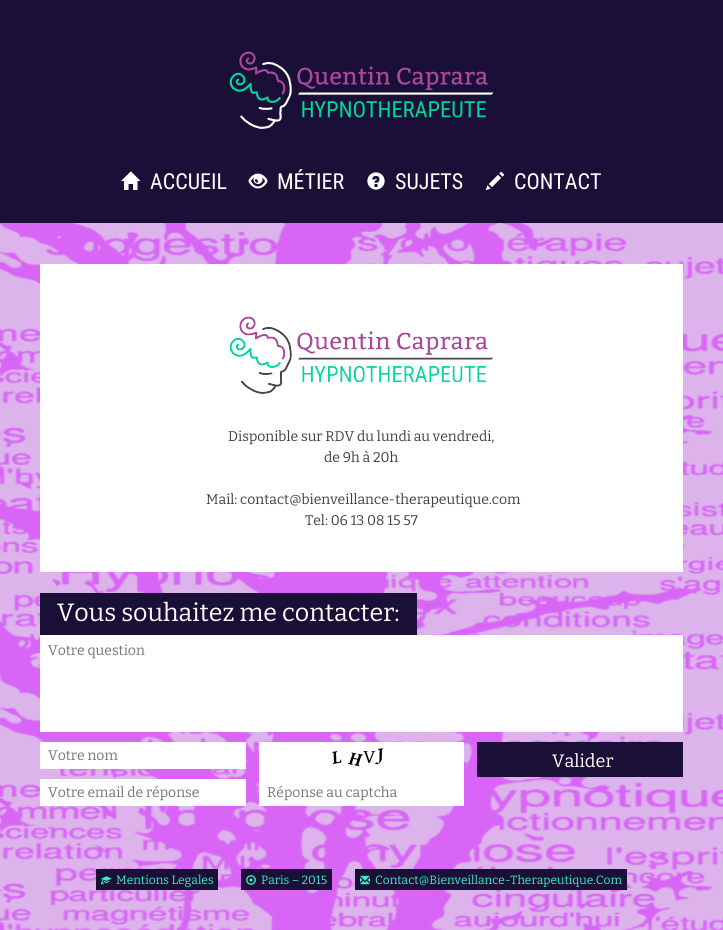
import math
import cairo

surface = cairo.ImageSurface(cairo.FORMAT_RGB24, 723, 930)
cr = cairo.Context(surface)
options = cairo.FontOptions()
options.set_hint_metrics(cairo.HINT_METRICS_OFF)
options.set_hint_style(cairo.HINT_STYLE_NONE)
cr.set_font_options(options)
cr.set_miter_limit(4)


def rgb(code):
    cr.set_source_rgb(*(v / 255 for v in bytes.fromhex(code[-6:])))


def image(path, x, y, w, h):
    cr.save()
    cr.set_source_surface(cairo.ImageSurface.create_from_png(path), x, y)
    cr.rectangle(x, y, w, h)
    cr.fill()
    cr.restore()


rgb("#ddb3eb")
cr.paint()
rgb("#1a0f37")
cr.rectangle(0, 0, 723, 223)
cr.fill()
image("img/1.png", 229, 51, 265, 78)
image("img/2.png", 121, 171, 20, 19)
image("img/3.png", 248, 173, 20, 16)
image("img/4.png", 367, 172, 18, 18)
image("img/5.png", 485, 171, 20, 20)
image("img/6.png", 0, 223, 723, 707)
rgb("#ffffff")
cr.rectangle(40, 264, 643, 308)
cr.fill()
image("img/7.png", 229, 316, 264, 78)
for x, y, w, h, color in [
    (40, 593, 377, 42, "#1a0f37"),
    (40, 635, 643, 97, "#ffffff"),
    (40, 742, 206, 27, "#ffffff"),
    (40, 779, 206, 27, "#ffffff"),
    (477, 742, 206, 35, "#1a0f37"),
    (259, 742, 205, 64, "#ffffff"),
]:
    rgb(color)
    cr.rectangle(x, y, w, h)
    cr.fill()
image("img/8.png", 332, 748, 52, 19)
rgb("#1a0f37")
cr.rectangle(96, 869, 122, 21)
cr.fill()
image("img/9.png", 101, 876, 11, 9)
cr.rectangle(241, 869, 91, 21)
cr.fill()
image("img/10.png", 246, 875, 10, 10)
cr.rectangle(355, 869, 272, 21)
cr.fill()
image("img/11.png", 360, 875, 10, 10)
cr.select_font_face("Roboto Condensed")
cr.set_font_size(22)
rgb("#ffffff")
for x, y, s in [
    (150, 189, "ACCUEIL"),
    (277, 189, "MÉTIER"),
    (395, 189, "SUJETS"),
    (514, 189, "CONTACT"),
]:
    cr.move_to(x, y)
    cr.show_text(s)
cr.select_font_face("Bitter Thin")
cr.set_font_size(14)
rgb("#404040")
for x, y, s in [
    (228, 441, "Disponible sur RDV du lundi au vendredi,"),
    (324, 462, "de 9h à 20h"),
    (206, 504, "Mail: contact@bienveillance-therapeutique.com"),
    (305, 525, "Tel: 06 13 08 15 57"),
]:
    cr.move_to(x, y)
    cr.show_text(s)
cr.set_font_size(25)
rgb("#ffffff")
cr.move_to(57, 621)
cr.show_text("Vous souhaitez me contacter:")
cr.set_font_size(14)
rgb("#757575")
for x, y, s in [
    (48, 655, "Votre question"),
    (48, 760, "Votre nom"),
    (48, 797, "Votre email de réponse"),
]:
    cr.move_to(x, y)
    cr.show_text(s)
cr.set_font_size(18)
rgb("#ffffff")
cr.move_to(552, 767)
cr.show_text("Valider")
cr.set_font_size(14)
rgb("#757575")
cr.move_to(267, 797)
cr.show_text("Réponse au captcha")
cr.set_font_size(12)
rgb("#3de9c7")
for x, y, s in [
    (116, 884, "Mentions Legales"),
    (261, 884, "Paris – 2015"),
    (375, 884, "Contact@Bienveillance-Therapeutique.Com"),
]:
    cr.move_to(x, y)
    cr.show_text(s)
surface.write_to_png("page.png")
